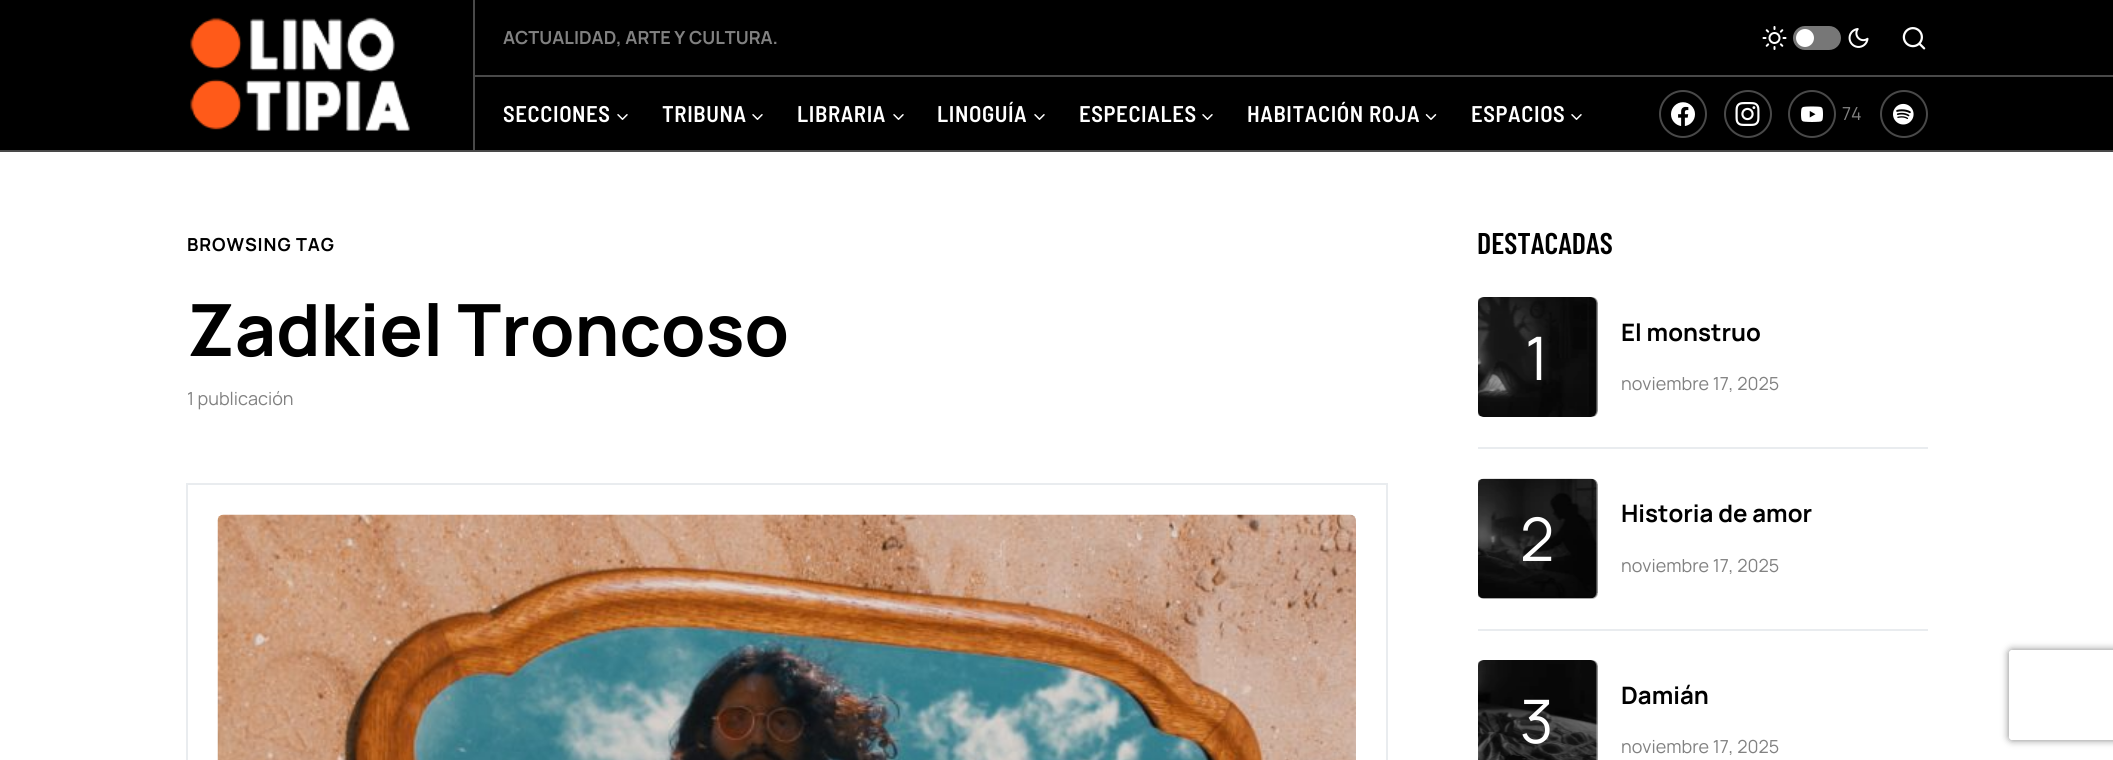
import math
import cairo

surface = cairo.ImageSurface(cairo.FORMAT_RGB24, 2113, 760)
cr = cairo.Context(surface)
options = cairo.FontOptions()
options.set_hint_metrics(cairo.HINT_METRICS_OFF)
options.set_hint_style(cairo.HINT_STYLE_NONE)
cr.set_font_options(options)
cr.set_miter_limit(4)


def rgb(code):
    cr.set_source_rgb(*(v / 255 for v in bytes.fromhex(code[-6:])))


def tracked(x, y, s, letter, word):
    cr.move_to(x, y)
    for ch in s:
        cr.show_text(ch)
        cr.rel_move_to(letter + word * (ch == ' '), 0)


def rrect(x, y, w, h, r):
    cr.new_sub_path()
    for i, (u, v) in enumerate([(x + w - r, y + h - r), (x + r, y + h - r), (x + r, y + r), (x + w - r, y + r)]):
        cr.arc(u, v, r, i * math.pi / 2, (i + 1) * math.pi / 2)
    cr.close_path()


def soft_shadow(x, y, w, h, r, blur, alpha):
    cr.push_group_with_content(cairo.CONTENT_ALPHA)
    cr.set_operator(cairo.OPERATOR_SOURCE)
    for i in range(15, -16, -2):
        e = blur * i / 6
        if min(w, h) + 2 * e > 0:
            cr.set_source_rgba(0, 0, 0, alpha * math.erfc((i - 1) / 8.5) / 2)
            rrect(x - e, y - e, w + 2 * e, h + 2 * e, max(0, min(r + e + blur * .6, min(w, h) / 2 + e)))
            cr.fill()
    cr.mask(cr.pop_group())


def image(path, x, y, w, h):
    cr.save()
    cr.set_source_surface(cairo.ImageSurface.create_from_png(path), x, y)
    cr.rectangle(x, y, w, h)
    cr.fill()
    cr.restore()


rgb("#ffffff")
cr.paint()
for x, y, w, h, color in [
    (0, 0, 2113, 150, "#000000"),
    (0, 150, 2113, 2, "#494949"),
    (473, 0, 2, 150, "#494949"),
]:
    rgb(color)
    cr.rectangle(x, y, w, h)
    cr.fill()
image("img/1.png", 190, 17, 220, 114)
cr.rectangle(474, 75, 1639, 2)
cr.fill()
image("img/2.png", 1762, 26, 25, 24)
rgb("#777777")
rrect(1793, 26, 48, 24, 12)
cr.fill()
rgb("#ffffff")
cr.arc(1805, 38, 9, 0, 2 * math.pi)
cr.fill()
image("img/3.png", 1848, 28, 21, 20)
image("img/4.png", 1902, 27, 24, 23)
image("img/5.png", 617, 114, 11, 6)
image("img/5.png", 752, 114, 11, 6)
image("img/5.png", 893, 114, 11, 6)
image("img/5.png", 1034, 114, 11, 6)
image("img/5.png", 1202, 114, 11, 6)
image("img/6.png", 1425, 114, 12, 6)
image("img/5.png", 1571, 114, 11, 6)
cr.arc(1683, 114, 23, 0, 2 * math.pi)
rgb("#494949")
cr.stroke()
image("img/7.png", 1671, 102, 24, 24)
cr.arc(1748, 114, 23, 0, 2 * math.pi)
cr.stroke()
image("img/8.png", 1735, 102, 25, 24)
cr.arc(1812, 114, 23, 0, 2 * math.pi)
cr.stroke()
image("img/9.png", 1801, 106, 22, 16)
cr.arc(1904, 114, 23, 0, 2 * math.pi)
cr.stroke()
image("img/10.png", 1893, 103, 21, 22)
cr.rectangle(187, 484, 1200, 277)
rgb("#e9ecef")
cr.stroke()
image("img/11.png", 217, 514, 1139, 246)
image("img/12.png", 1478, 297, 120, 120)
cr.set_source_rgba(0, 0, 0, 0.25)
rrect(1478, 297, 120, 120, 6)
cr.fill()
rgb("#e9ecef")
cr.rectangle(1478, 447, 450, 2)
cr.fill()
image("img/13.png", 1478, 478, 120, 121)
cr.set_source_rgba(0, 0, 0, 0.25)
rrect(1478, 479, 120, 120, 6)
cr.fill()
rgb("#e9ecef")
cr.rectangle(1478, 629, 450, 2)
cr.fill()
image("img/14.png", 1478, 660, 120, 100)
cr.set_source_rgba(0, 0, 0, 0.25)
rrect(1478, 660, 120, 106, 6)
cr.fill()
cr.save()
cr.set_fill_rule(cairo.FILL_RULE_EVEN_ODD)
cr.new_path()
cr.move_to(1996, 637)
cr.line_to(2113, 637)
cr.line_to(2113, 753)
cr.line_to(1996, 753)
cr.close_path()
cr.move_to(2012, 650)
cr.line_to(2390, 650)
cr.curve_to(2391.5, 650, 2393, 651.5, 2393, 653)
cr.line_to(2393, 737)
cr.curve_to(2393, 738.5, 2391.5, 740, 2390, 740)
cr.line_to(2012, 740)
cr.curve_to(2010.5, 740, 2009, 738.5, 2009, 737)
cr.line_to(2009, 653)
cr.curve_to(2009, 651.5, 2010.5, 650, 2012, 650)
cr.close_path()
cr.clip()
rgb("#808080")
soft_shadow(2009, 650, 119, 90, 3, 4, 1)
cr.restore()
cr.select_font_face("Manrope", cairo.FONT_SLANT_NORMAL, cairo.FONT_WEIGHT_BOLD)
cr.set_font_size(18)
rgb("#818181")
cr.move_to(503, 44)
cr.show_text("ACTUALIDAD, ARTE Y CULTURA.")
cr.select_font_face("Barlow Semi Condensed SemiBold")
cr.set_font_size(22.75)
rgb("#ffffff")
for x, y, s in [
    (503, 122, "SECCIONES"),
    (662, 122, "TRIBUNA"),
    (797, 122, "LIBRARIA"),
    (937, 122, "LINOGUÍA"),
    (1079, 122, "ESPECIALES"),
    (1247, 122, "HABITACIÓN ROJA"),
    (1471, 122, "ESPACIOS"),
]:
    tracked(x, y, s, 0.6, 0)
cr.select_font_face("Manrope")
cr.set_font_size(18)
rgb("#818181")
cr.move_to(1842, 120)
cr.show_text("74")
cr.select_font_face("Manrope", cairo.FONT_SLANT_NORMAL, cairo.FONT_WEIGHT_BOLD)
rgb("#000000")
tracked(187, 251, "BROWSING TAG", 0.9, 0)
cr.set_font_size(72)
cr.move_to(187, 356)
cr.show_text("Zadkiel Troncoso")
cr.select_font_face("Manrope")
cr.set_font_size(18)
rgb("#818181")
cr.move_to(187, 405)
cr.show_text("1 publicación")
cr.select_font_face("Barlow Condensed SemiBold")
cr.set_font_size(30)
rgb("#000000")
cr.move_to(1477, 254)
cr.show_text("DESTACADAS")
cr.select_font_face("Manrope")
cr.set_font_size(60)
rgb("#ffffff")
cr.move_to(1525, 380)
cr.show_text("1")
cr.select_font_face("Manrope", cairo.FONT_SLANT_NORMAL, cairo.FONT_WEIGHT_BOLD)
cr.set_font_size(24)
rgb("#000000")
cr.move_to(1621, 341)
cr.show_text("El monstruo")
cr.select_font_face("Manrope")
cr.set_font_size(18)
rgb("#818181")
cr.move_to(1621, 390)
cr.show_text("noviembre 17, 2025")
cr.set_font_size(60)
rgb("#ffffff")
cr.move_to(1520, 561)
cr.show_text("2")
cr.select_font_face("Manrope", cairo.FONT_SLANT_NORMAL, cairo.FONT_WEIGHT_BOLD)
cr.set_font_size(24)
rgb("#000000")
cr.move_to(1621, 522)
cr.show_text("Historia de amor")
cr.select_font_face("Manrope")
cr.set_font_size(18)
rgb("#818181")
cr.move_to(1621, 572)
cr.show_text("noviembre 17, 2025")
cr.set_font_size(60)
rgb("#ffffff")
cr.move_to(1520, 743)
cr.show_text("3")
cr.select_font_face("Manrope", cairo.FONT_SLANT_NORMAL, cairo.FONT_WEIGHT_BOLD)
cr.set_font_size(24)
rgb("#000000")
cr.move_to(1621, 704)
cr.show_text("Damián")
cr.select_font_face("Manrope")
cr.set_font_size(18)
rgb("#818181")
cr.move_to(1621, 753)
cr.show_text("noviembre 17, 2025")
surface.write_to_png("page.png")
